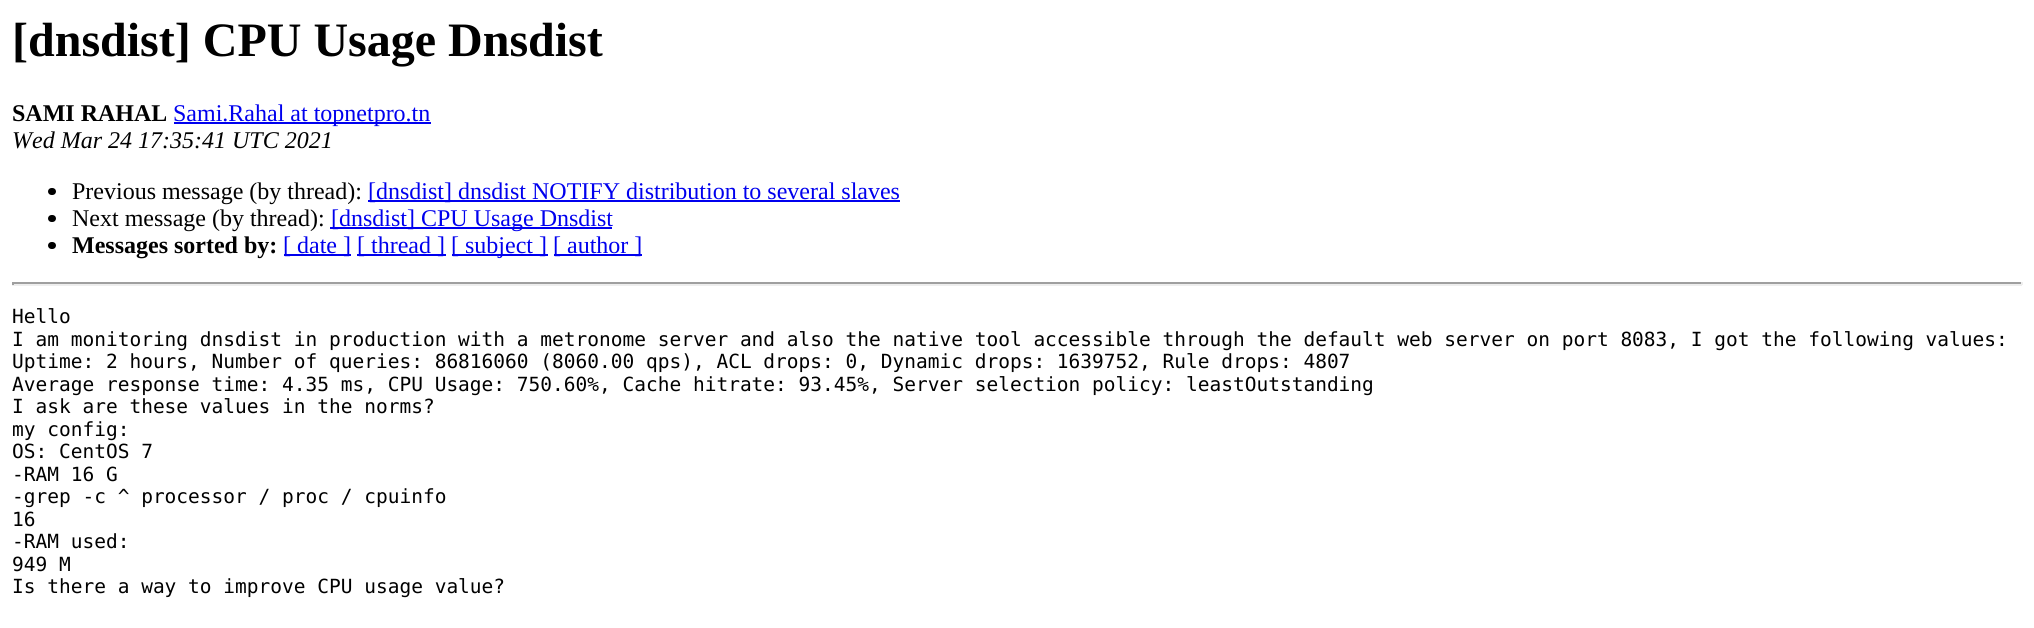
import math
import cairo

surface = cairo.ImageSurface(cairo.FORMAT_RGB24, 2034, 628)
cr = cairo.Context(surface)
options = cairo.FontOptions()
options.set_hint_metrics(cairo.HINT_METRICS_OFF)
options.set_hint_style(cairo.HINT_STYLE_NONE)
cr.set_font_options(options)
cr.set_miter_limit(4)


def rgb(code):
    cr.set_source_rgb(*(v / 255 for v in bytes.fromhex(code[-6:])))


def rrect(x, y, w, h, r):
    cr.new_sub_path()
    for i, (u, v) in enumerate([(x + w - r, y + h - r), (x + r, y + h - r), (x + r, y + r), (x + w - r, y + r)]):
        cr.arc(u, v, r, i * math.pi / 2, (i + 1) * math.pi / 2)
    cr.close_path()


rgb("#ffffff")
cr.paint()
rgb("#0000ee")
cr.rectangle(174, 122, 257, 2)
cr.fill()
rgb("#000000")
rrect(48, 188, 8, 7, 3.5)
cr.fill()
rgb("#0000ee")
cr.rectangle(368, 200, 532, 2)
cr.fill()
rgb("#000000")
rrect(48, 215, 8, 7, 3.5)
cr.fill()
rgb("#0000ee")
cr.rectangle(330, 227, 282, 2)
cr.fill()
rgb("#000000")
rrect(48, 242, 8, 7, 3.5)
cr.fill()
for x, y, w, h, color in [
    (284, 254, 67, 2, "#0000ee"),
    (357, 254, 89, 2, "#0000ee"),
    (452, 254, 96, 2, "#0000ee"),
    (554, 254, 88, 2, "#0000ee"),
    (12, 282, 2010, 2, "#9f9f9f"),
    (2021, 282, 2, 3, "#eeeeee"),
    (12, 284, 2010, 2, "#eeeeee"),
    (12, 282, 2, 3, "#9f9f9f"),
]:
    rgb(color)
    cr.rectangle(x, y, w, h)
    cr.fill()
cr.select_font_face("Liberation Serif", cairo.FONT_SLANT_NORMAL, cairo.FONT_WEIGHT_BOLD)
cr.set_font_size(48)
rgb("#000000")
cr.move_to(12, 56)
cr.show_text("[dnsdist] CPU Usage Dnsdist")
cr.set_font_size(24)
cr.move_to(12, 121)
cr.show_text("SAMI RAHAL")
cr.select_font_face("Liberation Serif")
rgb("#0000ee")
cr.move_to(173, 121)
cr.show_text("Sami.Rahal at topnetpro.tn")
cr.select_font_face("Liberation Serif", cairo.FONT_SLANT_ITALIC)
rgb("#000000")
cr.move_to(12, 148)
cr.show_text("Wed Mar 24 17:35:41 UTC 2021")
cr.select_font_face("Liberation Serif")
cr.move_to(72, 199)
cr.show_text("Previous message (by thread):")
rgb("#0000ee")
cr.move_to(368, 199)
cr.show_text("[dnsdist] dnsdist NOTIFY distribution to several slaves")
rgb("#000000")
cr.move_to(72, 226)
cr.show_text("Next message (by thread):")
rgb("#0000ee")
cr.move_to(331, 226)
cr.show_text("[dnsdist] CPU Usage Dnsdist")
cr.select_font_face("Liberation Serif", cairo.FONT_SLANT_NORMAL, cairo.FONT_WEIGHT_BOLD)
rgb("#000000")
cr.move_to(72, 253)
cr.show_text("Messages sorted by:")
cr.select_font_face("Liberation Serif")
rgb("#0000ee")
for x, y, s in [
    (283, 253, "[ date ]"),
    (357, 253, "[ thread ]"),
    (451, 253, "[ subject ]"),
    (553, 253, "[ author ]"),
]:
    cr.move_to(x, y)
    cr.show_text(s)
cr.select_font_face("DejaVu Sans Mono")
cr.set_font_size(19.5)
rgb("#000000")
for x, y, s in [
    (12, 323, "Hello"),
    (12, 346, "I am monitoring dnsdist in production with a metronome server and also the native tool accessible through the default web server on port 8083, I got the following values:"),
    (12, 368, "Uptime: 2 hours, Number of queries: 86816060 (8060.00 qps), ACL drops: 0, Dynamic drops: 1639752, Rule drops: 4807"),
    (12, 391, "Average response time: 4.35 ms, CPU Usage: 750.60%, Cache hitrate: 93.45%, Server selection policy: leastOutstanding"),
    (12, 413, "I ask are these values in the norms?"),
    (12, 436, "my config:"),
    (12, 458, "OS: CentOS 7"),
    (12, 481, "-RAM 16 G"),
    (12, 503, "-grep -c ^ processor / proc / cpuinfo"),
    (12, 526, "16"),
    (12, 548, "-RAM used:"),
    (12, 571, "949 M"),
    (12, 593, "Is there a way to improve CPU usage value?"),
]:
    cr.move_to(x, y)
    cr.show_text(s)
surface.write_to_png("page.png")
